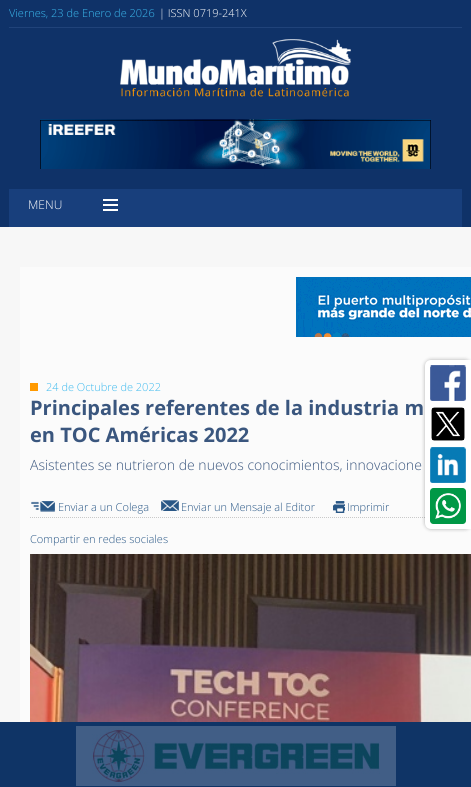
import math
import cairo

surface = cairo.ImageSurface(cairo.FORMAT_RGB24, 471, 787)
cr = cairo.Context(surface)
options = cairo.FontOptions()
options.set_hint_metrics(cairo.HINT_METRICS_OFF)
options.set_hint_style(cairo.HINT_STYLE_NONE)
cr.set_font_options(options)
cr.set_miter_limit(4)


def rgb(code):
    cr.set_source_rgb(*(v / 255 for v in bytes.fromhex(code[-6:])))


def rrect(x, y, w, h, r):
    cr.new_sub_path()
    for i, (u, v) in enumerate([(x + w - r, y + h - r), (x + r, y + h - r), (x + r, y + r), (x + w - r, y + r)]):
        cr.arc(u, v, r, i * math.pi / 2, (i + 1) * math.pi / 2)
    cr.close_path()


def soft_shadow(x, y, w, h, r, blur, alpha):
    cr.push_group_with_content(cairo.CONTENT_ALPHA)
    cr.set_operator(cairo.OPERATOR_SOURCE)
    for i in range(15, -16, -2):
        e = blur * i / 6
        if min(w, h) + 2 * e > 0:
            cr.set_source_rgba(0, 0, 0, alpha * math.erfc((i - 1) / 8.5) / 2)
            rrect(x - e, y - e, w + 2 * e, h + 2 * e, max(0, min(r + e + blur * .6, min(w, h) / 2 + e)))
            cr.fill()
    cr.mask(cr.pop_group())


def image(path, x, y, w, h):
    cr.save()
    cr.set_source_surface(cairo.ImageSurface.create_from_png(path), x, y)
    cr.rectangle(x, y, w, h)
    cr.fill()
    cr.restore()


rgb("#f7f7f7")
cr.paint()
rgb("#0f3268")
cr.rectangle(0, 0, 471, 227)
cr.fill()
rgb("#20437a")
cr.rectangle(9, 27, 453, 1)
cr.fill()
image("img/1.png", 120, 39, 231, 58)
image("img/2.png", 40, 119, 391, 50)
for x, y, w, h, color in [
    (9, 189, 453, 38, "#183f7c"),
    (103, 199, 15, 2, "#ffffff"),
    (103, 204, 15, 2, "#ffffff"),
    (103, 209, 15, 2, "#ffffff"),
    (20, 267, 451, 455, "#fbfbfb"),
]:
    rgb(color)
    cr.rectangle(x, y, w, h)
    cr.fill()
image("img/3.png", 296, 277, 175, 60)
rgb("#ff9900")
cr.rectangle(30, 383, 8, 8)
cr.fill()
image("img/4.png", 31, 501, 24, 11)
image("img/5.png", 161, 500, 18, 11)
image("img/6.png", 333, 501, 12, 12)
cr.new_path()
cr.move_to(30, 517.5)
cr.line_to(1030, 517.5)
rgb("#c9c9c9")
cr.set_line_width(1)
cr.set_dash([1, 1])
cr.stroke()
image("img/7.png", 30, 554, 441, 168)
rgb("#000000")
soft_shadow(425, 360, 46, 169, 6, 2, 0.3)
rgb("#ffffff")
cr.new_path()
cr.move_to(431, 360)
cr.line_to(471, 360)
cr.line_to(471, 529)
cr.line_to(431, 529)
cr.curve_to(427.5, 529, 425, 526.5, 425, 523)
cr.line_to(425, 366)
cr.curve_to(425, 362.5, 427.5, 360, 431, 360)
cr.close_path()
cr.fill()
image("img/8.png", 430, 365, 36, 36)
image("img/9.png", 431, 407, 34, 34)
image("img/10.png", 430, 447, 36, 36)
image("img/11.png", 430, 488, 36, 36)
rgb("#0f3466")
cr.rectangle(0, 722, 471, 65)
cr.fill()
image("img/12.png", 76, 726, 320, 60)
cr.select_font_face("Open Sans Light")
cr.set_font_size(11)
rgb("#3bb9ee")
cr.move_to(9, 17)
cr.show_text("Viernes, 23 de Enero de 2026")
rgb("#ffffff")
cr.move_to(159, 17)
cr.show_text("| ISSN 0719-241X")
cr.set_font_size(12)
cr.move_to(28, 209)
cr.show_text("MENU")
cr.set_font_size(11)
rgb("#3bb9ee")
cr.move_to(46, 391)
cr.show_text("24 de Octubre de 2022")
cr.select_font_face("Open Sans", cairo.FONT_SLANT_NORMAL, cairo.FONT_WEIGHT_BOLD)
cr.set_font_size(20)
rgb("#3a567e")
cr.move_to(30, 415)
cr.show_text("Principales referentes de la industria m")
cr.move_to(30, 442)
cr.show_text("en TOC Américas 2022")
cr.select_font_face("Open Sans Light")
cr.set_font_size(14)
cr.move_to(30, 470)
cr.show_text("Asistentes se nutrieron de nuevos conocimientos, innovacione")
cr.set_font_size(11)
rgb("#295786")
for x, y, s in [
    (58, 511, "Enviar a un Colega"),
    (181, 511, "Enviar un Mensaje al Editor"),
    (347, 511, "Imprimir"),
    (30, 543, "Compartir en redes sociales"),
]:
    cr.move_to(x, y)
    cr.show_text(s)
surface.write_to_png("page.png")
